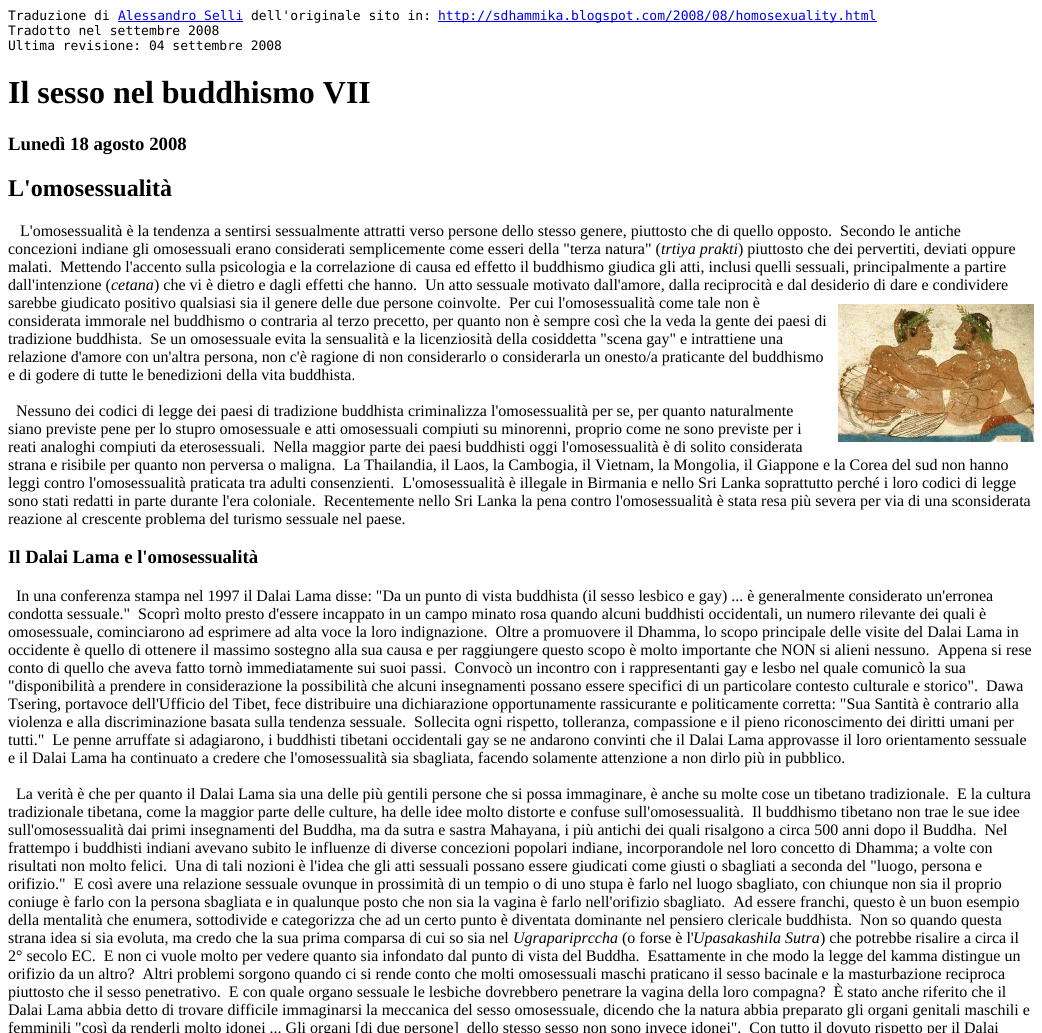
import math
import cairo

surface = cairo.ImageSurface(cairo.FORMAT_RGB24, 1042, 1033)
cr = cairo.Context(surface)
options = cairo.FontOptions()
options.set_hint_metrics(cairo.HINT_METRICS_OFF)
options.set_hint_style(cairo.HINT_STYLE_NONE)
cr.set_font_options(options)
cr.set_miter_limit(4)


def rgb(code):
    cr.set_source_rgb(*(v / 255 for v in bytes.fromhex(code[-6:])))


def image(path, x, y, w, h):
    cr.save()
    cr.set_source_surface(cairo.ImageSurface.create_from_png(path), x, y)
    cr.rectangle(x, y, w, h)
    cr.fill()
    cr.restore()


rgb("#ffffff")
cr.paint()
rgb("#0000ee")
cr.rectangle(118, 21, 125, 1)
cr.fill()
cr.rectangle(438, 21, 439, 1)
cr.fill()
image("img/1.png", 838, 304, 196, 138)
cr.select_font_face("DejaVu Sans Mono")
cr.set_font_size(13)
rgb("#000000")
cr.move_to(8, 20)
cr.show_text("Traduzione di")
rgb("#0000ee")
cr.move_to(118, 20)
cr.show_text("Alessandro Selli")
rgb("#000000")
cr.move_to(251, 20)
cr.show_text("dell'originale sito in:")
rgb("#0000ee")
cr.move_to(438, 20)
cr.show_text("http://sdhammika.blogspot.com/2008/08/homosexuality.html")
rgb("#000000")
cr.move_to(8, 35)
cr.show_text("Tradotto nel settembre 2008")
cr.move_to(8, 50)
cr.show_text("Ultima revisione: 04 settembre 2008")
cr.select_font_face("Liberation Serif", cairo.FONT_SLANT_NORMAL, cairo.FONT_WEIGHT_BOLD)
cr.set_font_size(32)
cr.move_to(8, 103)
cr.show_text("Il sesso nel buddhismo VII")
cr.set_font_size(18.75)
cr.move_to(8, 150)
cr.show_text("Lunedì 18 agosto 2008")
cr.set_font_size(24)
cr.move_to(8, 196)
cr.show_text("L'omosessualità")
cr.select_font_face("Liberation Serif")
cr.set_font_size(16)
cr.move_to(20, 236)
cr.show_text("L'omosessualità è la tendenza a sentirsi sessualmente attratti verso persone dello stesso genere, piuttosto che di quello opposto.  Secondo le antiche")
cr.move_to(8, 254)
cr.show_text("concezioni indiane gli omosessuali erano considerati semplicemente come esseri della \"terza natura\" (")
cr.select_font_face("Liberation Serif", cairo.FONT_SLANT_ITALIC)
cr.move_to(661, 254)
cr.show_text("trtiya prakti")
cr.select_font_face("Liberation Serif")
for x, y, s in [
    (738, 254, ") piuttosto che dei pervertiti, deviati oppure"),
    (8, 272, "malati.  Mettendo l'accento sulla psicologia e la correlazione di causa ed effetto il buddhismo giudica gli atti, inclusi quelli sessuali, principalmente a partire"),
    (8, 290, "dall'intenzione ("),
]:
    cr.move_to(x, y)
    cr.show_text(s)
cr.select_font_face("Liberation Serif", cairo.FONT_SLANT_ITALIC)
cr.move_to(111, 290)
cr.show_text("cetana")
cr.select_font_face("Liberation Serif")
for x, y, s in [
    (154, 290, ") che vi è dietro e dagli effetti che hanno.  Un atto sessuale motivato dall'amore, dalla reciprocità e dal desiderio di dare e condividere"),
    (8, 308, "sarebbe giudicato positivo qualsiasi sia il genere delle due persone coinvolte."),
    (509, 308, "Per cui l'omosessualità come tale non è"),
    (8, 326, "considerata immorale nel buddhismo o contraria al terzo precetto, per quanto non è sempre così che la veda la gente dei paesi di"),
    (8, 344, "tradizione buddhista.  Se un omosessuale evita la sensualità e la licenziosità della cosiddetta \"scena gay\" e intrattiene una"),
    (8, 362, "relazione d'amore con un'altra persona, non c'è ragione di non considerarlo o considerarla un onesto/a praticante del buddhismo"),
    (8, 380, "e di godere di tutte le benedizioni della vita buddhista."),
    (16, 416, "Nessuno dei codici di legge dei paesi di tradizione buddhista criminalizza l'omosessualità per se, per quanto naturalmente"),
    (8, 434, "siano previste pene per lo stupro omosessuale e atti omosessuali compiuti su minorenni, proprio come ne sono previste per i"),
    (8, 452, "reati analoghi compiuti da eterosessuali.  Nella maggior parte dei paesi buddhisti oggi l'omosessualità è di solito considerata"),
    (8, 470, "strana e risibile per quanto non perversa o maligna.  La Thailandia, il Laos, la Cambogia, il Vietnam, la Mongolia, il Giappone e la Corea del sud non hanno"),
    (8, 488, "leggi contro l'omosessualità praticata tra adulti consenzienti.  L'omosessualità è illegale in Birmania e nello Sri Lanka soprattutto perché i loro codici di legge"),
    (8, 506, "sono stati redatti in parte durante l'era coloniale.  Recentemente nello Sri Lanka la pena contro l'omosessualità è stata resa più severa per via di una sconsiderata"),
    (8, 524, "reazione al crescente problema del turismo sessuale nel paese."),
]:
    cr.move_to(x, y)
    cr.show_text(s)
cr.select_font_face("Liberation Serif", cairo.FONT_SLANT_NORMAL, cairo.FONT_WEIGHT_BOLD)
cr.set_font_size(18.75)
cr.move_to(8, 563)
cr.show_text("Il Dalai Lama e l'omosessualità")
cr.select_font_face("Liberation Serif")
cr.set_font_size(16)
for x, y, s in [
    (16, 601, "In una conferenza stampa nel 1997 il Dalai Lama disse: \"Da un punto di vista buddhista (il sesso lesbico e gay) ... è generalmente considerato un'erronea"),
    (8, 619, "condotta sessuale.\"  Scoprì molto presto d'essere incappato in un campo minato rosa quando alcuni buddhisti occidentali, un numero rilevante dei quali è"),
    (8, 637, "omosessuale, cominciarono ad esprimere ad alta voce la loro indignazione.  Oltre a promuovere il Dhamma, lo scopo principale delle visite del Dalai Lama in"),
    (8, 655, "occidente è quello di ottenere il massimo sostegno alla sua causa e per raggiungere questo scopo è molto importante che NON si alieni nessuno.  Appena si rese"),
    (8, 673, "conto di quello che aveva fatto tornò immediatamente sui suoi passi.  Convocò un incontro con i rappresentanti gay e lesbo nel quale comunicò la sua"),
    (8, 691, "\"disponibilità a prendere in considerazione la possibilità che alcuni insegnamenti possano essere specifici di un particolare contesto culturale e storico\".  Dawa"),
    (8, 709, "Tsering, portavoce dell'Ufficio del Tibet, fece distribuire una dichiarazione opportunamente rassicurante e politicamente corretta: \"Sua Santità è contrario alla"),
    (8, 727, "violenza e alla discriminazione basata sulla tendenza sessuale.  Sollecita ogni rispetto, tolleranza, compassione e il pieno riconoscimento dei diritti umani per"),
    (8, 745, "tutti.\"  Le penne arruffate si adagiarono, i buddhisti tibetani occidentali gay se ne andarono convinti che il Dalai Lama approvasse il loro orientamento sessuale"),
    (8, 763, "e il Dalai Lama ha continuato a credere che l'omosessualità sia sbagliata, facendo solamente attenzione a non dirlo più in pubblico."),
    (16, 799, "La verità è che per quanto il Dalai Lama sia una delle più gentili persone che si possa immaginare, è anche su molte cose un tibetano tradizionale.  E la cultura"),
    (8, 817, "tradizionale tibetana, come la maggior parte delle culture, ha delle idee molto distorte e confuse sull'omosessualità.  Il buddhismo tibetano non trae le sue idee"),
    (8, 835, "sull'omosessualità dai primi insegnamenti del Buddha, ma da sutra e sastra Mahayana, i più antichi dei quali risalgono a circa 500 anni dopo il Buddha.  Nel"),
    (8, 853, "frattempo i buddhisti indiani avevano subito le influenze di diverse concezioni popolari indiane, incorporandole nel loro concetto di Dhamma; a volte con"),
    (8, 871, "risultati non molto felici.  Una di tali nozioni è l'idea che gli atti sessuali possano essere giudicati come giusti o sbagliati a seconda del \"luogo, persona e"),
    (8, 889, "orifizio.\"  E così avere una relazione sessuale ovunque in prossimità di un tempio o di uno stupa è farlo nel luogo sbagliato, con chiunque non sia il proprio"),
    (8, 907, "coniuge è farlo con la persona sbagliata e in qualunque posto che non sia la vagina è farlo nell'orifizio sbagliato.  Ad essere franchi, questo è un buon esempio"),
    (8, 925, "della mentalità che enumera, sottodivide e categorizza che ad un certo punto è diventata dominante nel pensiero clericale buddhista.  Non so quando questa"),
    (8, 943, "strana idea si sia evoluta, ma credo che la sua prima comparsa di cui so sia nel"),
]:
    cr.move_to(x, y)
    cr.show_text(s)
cr.select_font_face("Liberation Serif", cairo.FONT_SLANT_ITALIC)
cr.move_to(513, 943)
cr.show_text("Ugrapariprccha")
cr.select_font_face("Liberation Serif")
cr.move_to(622, 943)
cr.show_text("(o forse è l'")
cr.select_font_face("Liberation Serif", cairo.FONT_SLANT_ITALIC)
cr.move_to(693, 943)
cr.show_text("Upasakashila Sutra")
cr.select_font_face("Liberation Serif")
for x, y, s in [
    (820, 943, ") che potrebbe risalire a circa il"),
    (8, 961, "2° secolo EC.  E non ci vuole molto per vedere quanto sia infondato dal punto di vista del Buddha.  Esattamente in che modo la legge del kamma distingue un"),
    (8, 979, "orifizio da un altro?  Altri problemi sorgono quando ci si rende conto che molti omosessuali maschi praticano il sesso bacinale e la masturbazione reciproca"),
    (8, 997, "piuttosto che il sesso penetrativo.  E con quale organo sessuale le lesbiche dovrebbero penetrare la vagina della loro compagna?  È stato anche riferito che il"),
    (8, 1015, "Dalai Lama abbia detto di trovare difficile immaginarsi la meccanica del sesso omosessuale, dicendo che la natura abbia preparato gli organi genitali maschili e"),
    (8, 1033, "femminili \"così da renderli molto idonei ... Gli organi [di due persone]  dello stesso sesso non sono invece idonei\".  Con tutto il dovuto rispetto per il Dalai"),
]:
    cr.move_to(x, y)
    cr.show_text(s)
surface.write_to_png("page.png")
